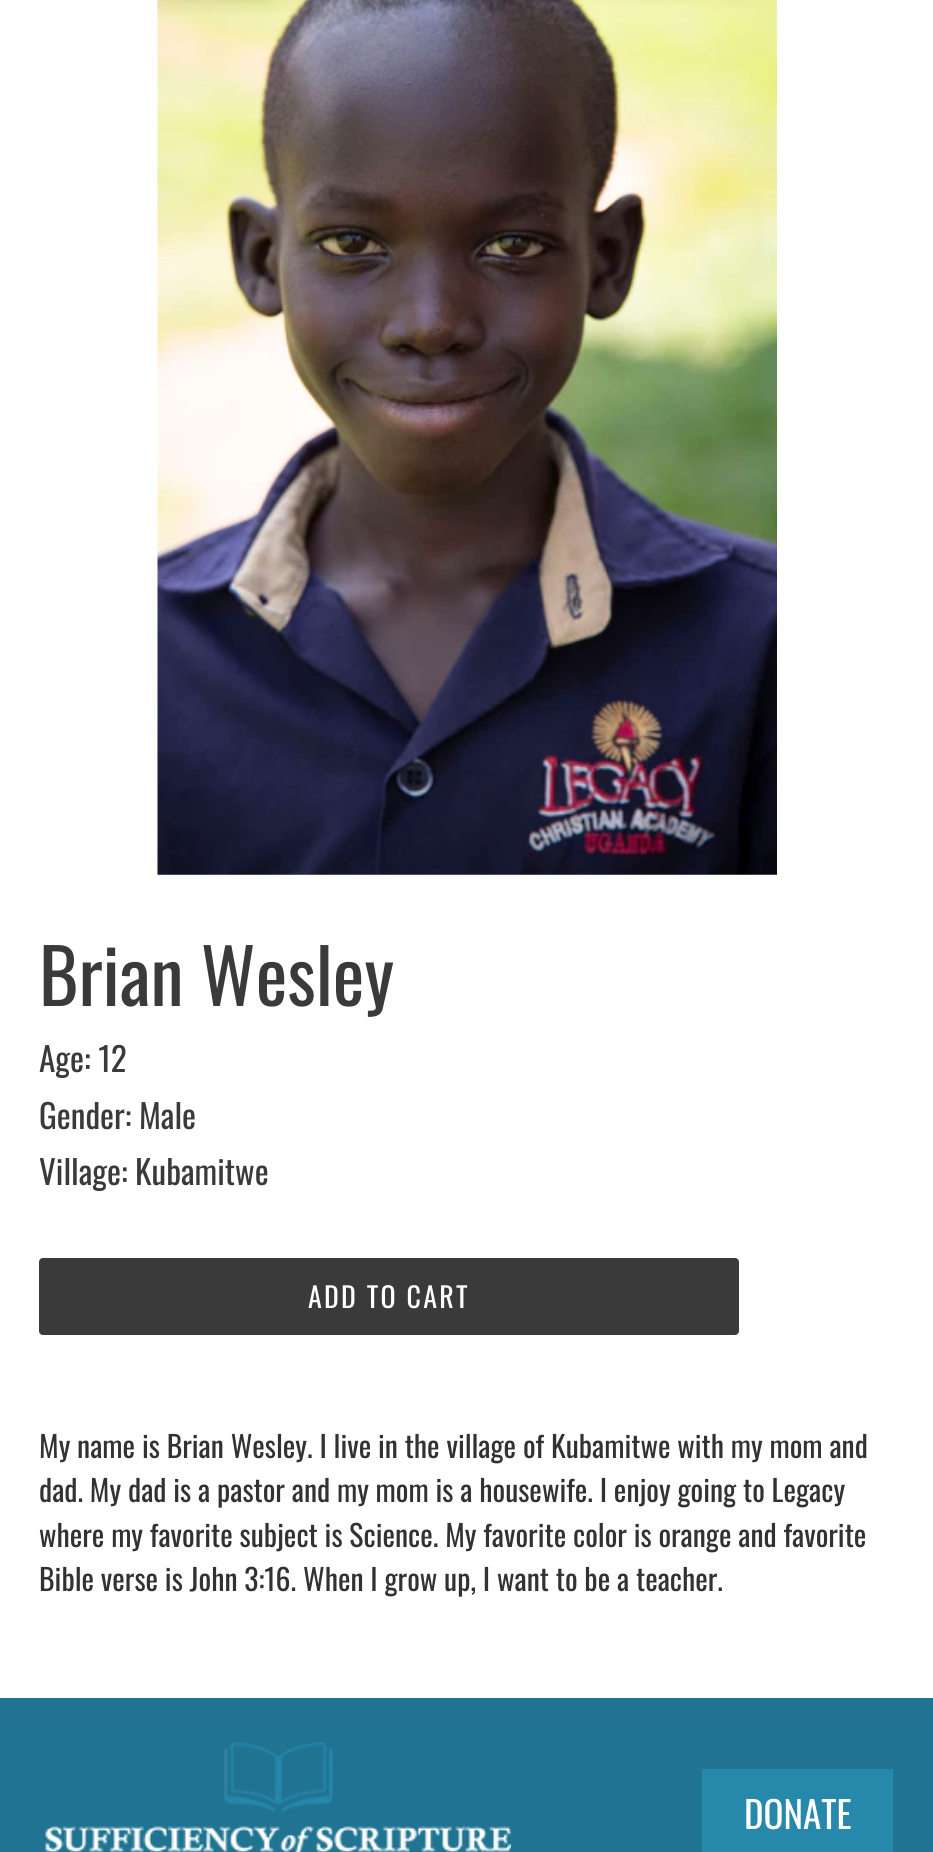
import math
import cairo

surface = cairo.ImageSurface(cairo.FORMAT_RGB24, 933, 1852)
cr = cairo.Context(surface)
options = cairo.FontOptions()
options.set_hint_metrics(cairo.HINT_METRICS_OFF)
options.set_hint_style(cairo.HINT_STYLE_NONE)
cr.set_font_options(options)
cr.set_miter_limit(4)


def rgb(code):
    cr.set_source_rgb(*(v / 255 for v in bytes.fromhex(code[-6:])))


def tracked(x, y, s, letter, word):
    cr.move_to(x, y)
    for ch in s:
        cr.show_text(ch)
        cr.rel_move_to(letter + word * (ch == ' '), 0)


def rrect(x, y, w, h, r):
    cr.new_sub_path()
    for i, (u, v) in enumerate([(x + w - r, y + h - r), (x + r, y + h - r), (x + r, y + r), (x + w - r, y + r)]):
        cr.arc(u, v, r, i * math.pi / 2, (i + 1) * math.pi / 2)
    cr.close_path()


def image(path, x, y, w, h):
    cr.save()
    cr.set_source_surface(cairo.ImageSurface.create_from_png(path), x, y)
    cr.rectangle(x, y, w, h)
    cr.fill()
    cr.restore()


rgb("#ffffff")
cr.paint()
image("img/1.png", 157, 0, 620, 875)
rgb("#3a3a3a")
rrect(39, 1258, 700, 77, 4)
cr.fill()
rgb("#207492")
cr.rectangle(0, 1698, 933, 154)
cr.fill()
image("img/2.png", 45, 1742, 466, 110)
rgb("#2689ab")
cr.rectangle(702, 1769, 191, 83)
cr.fill()
cr.select_font_face("Oswald")
cr.set_font_size(75.25)
rgb("#3a3a3a")
cr.move_to(39, 1006)
cr.show_text("Brian Wesley")
cr.set_font_size(33.25)
for x, y, s in [
    (39, 1072, "Age: 12"),
    (39, 1129, "Gender: Male"),
    (39, 1185, "Village: Kubamitwe"),
]:
    cr.move_to(x, y)
    cr.show_text(s)
cr.set_font_size(28)
rgb("#ffffff")
tracked(308, 1308, "ADD TO CART", 2.25, 0)
cr.set_font_size(29.75)
rgb("#333232")
for x, y, s in [
    (39, 1458, "My name is Brian Wesley. I live in the village of Kubamitwe with my mom and"),
    (39, 1502, "dad. My dad is a pastor and my mom is a housewife. I enjoy going to Legacy"),
    (39, 1547, "where my favorite subject is Science. My favorite color is orange and favorite"),
    (39, 1591, "Bible verse is John 3:16. When I grow up, I want to be a teacher."),
]:
    cr.move_to(x, y)
    cr.show_text(s)
cr.set_font_size(37)
rgb("#ffffff")
cr.move_to(744, 1829)
cr.show_text("DONATE")
surface.write_to_png("page.png")
